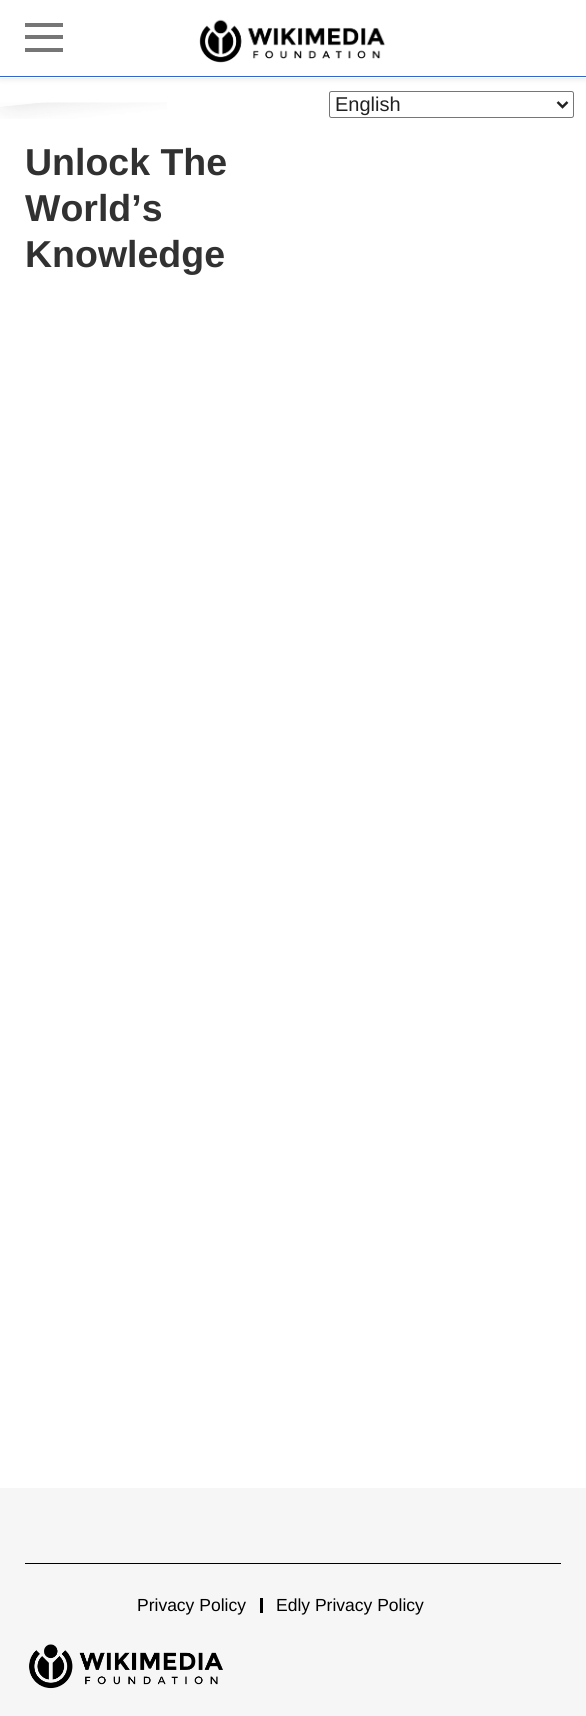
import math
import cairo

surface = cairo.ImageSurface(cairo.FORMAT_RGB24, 586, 1716)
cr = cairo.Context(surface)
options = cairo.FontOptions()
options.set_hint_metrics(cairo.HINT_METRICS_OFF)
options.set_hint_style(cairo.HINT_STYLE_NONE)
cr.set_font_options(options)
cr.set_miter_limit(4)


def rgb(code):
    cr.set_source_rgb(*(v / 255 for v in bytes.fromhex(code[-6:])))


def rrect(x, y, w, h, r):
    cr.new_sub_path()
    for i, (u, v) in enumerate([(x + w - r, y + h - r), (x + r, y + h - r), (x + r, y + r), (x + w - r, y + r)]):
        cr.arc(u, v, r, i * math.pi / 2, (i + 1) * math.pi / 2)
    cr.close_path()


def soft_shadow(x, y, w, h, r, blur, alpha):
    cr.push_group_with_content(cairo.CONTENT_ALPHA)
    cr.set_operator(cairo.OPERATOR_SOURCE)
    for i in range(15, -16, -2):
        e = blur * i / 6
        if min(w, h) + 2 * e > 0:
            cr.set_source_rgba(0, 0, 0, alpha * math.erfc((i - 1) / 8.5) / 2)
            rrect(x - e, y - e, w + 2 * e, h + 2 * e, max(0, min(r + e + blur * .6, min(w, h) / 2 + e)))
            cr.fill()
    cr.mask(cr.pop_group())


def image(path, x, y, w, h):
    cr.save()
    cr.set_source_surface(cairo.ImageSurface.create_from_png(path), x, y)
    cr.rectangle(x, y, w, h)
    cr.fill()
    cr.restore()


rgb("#ffffff")
cr.paint()
rgb("#000000")
soft_shadow(0, 1, 586, 78, 0, 3, 0.1)
for x, y, w, h, color in [
    (0, 0, 586, 78, "#ffffff"),
    (0, 76, 586, 1, "#3366cc"),
    (25, 23, 38, 4, "#767676"),
    (25, 35, 38, 4, "#767676"),
    (25, 48, 38, 4, "#767676"),
]:
    rgb(color)
    cr.rectangle(x, y, w, h)
    cr.fill()
image("img/1.png", 199, 19, 187, 44)
rrect(329.5, 91.5, 244, 26, 2)
cr.set_line_width(1)
cr.stroke()
cr.new_path()
cr.move_to(557.5, 102)
cr.line_to(562.5, 107)
cr.line_to(567.5, 102)
rgb("#222222")
cr.set_line_width(2.5)
cr.stroke()
image("img/2.png", 0, 102, 167, 17)
for x, y, w, h, color in [
    (0, 1488, 586, 228, "#f6f6f6"),
    (25, 1563, 536, 1, "#000000"),
    (260, 1598, 3, 15, "#000000"),
]:
    rgb(color)
    cr.rectangle(x, y, w, h)
    cr.fill()
image("img/3.png", 29, 1644, 194, 45)
cr.select_font_face("Liberation Sans")
cr.set_font_size(20)
rgb("#222222")
cr.move_to(335, 111)
cr.show_text("English")
cr.select_font_face("Liberation Sans", cairo.FONT_SLANT_NORMAL, cairo.FONT_WEIGHT_BOLD)
cr.set_font_size(37.5)
rgb("#313131")
for x, y, s in [
    (25, 175, "Unlock The"),
    (25, 221, "World’s"),
    (25, 267, "Knowledge"),
]:
    cr.move_to(x, y)
    cr.show_text(s)
cr.select_font_face("Liberation Sans")
cr.set_font_size(17.5)
rgb("#000000")
cr.move_to(137, 1611)
cr.show_text("Privacy Policy")
cr.move_to(276, 1611)
cr.show_text("Edly Privacy Policy")
surface.write_to_png("page.png")
